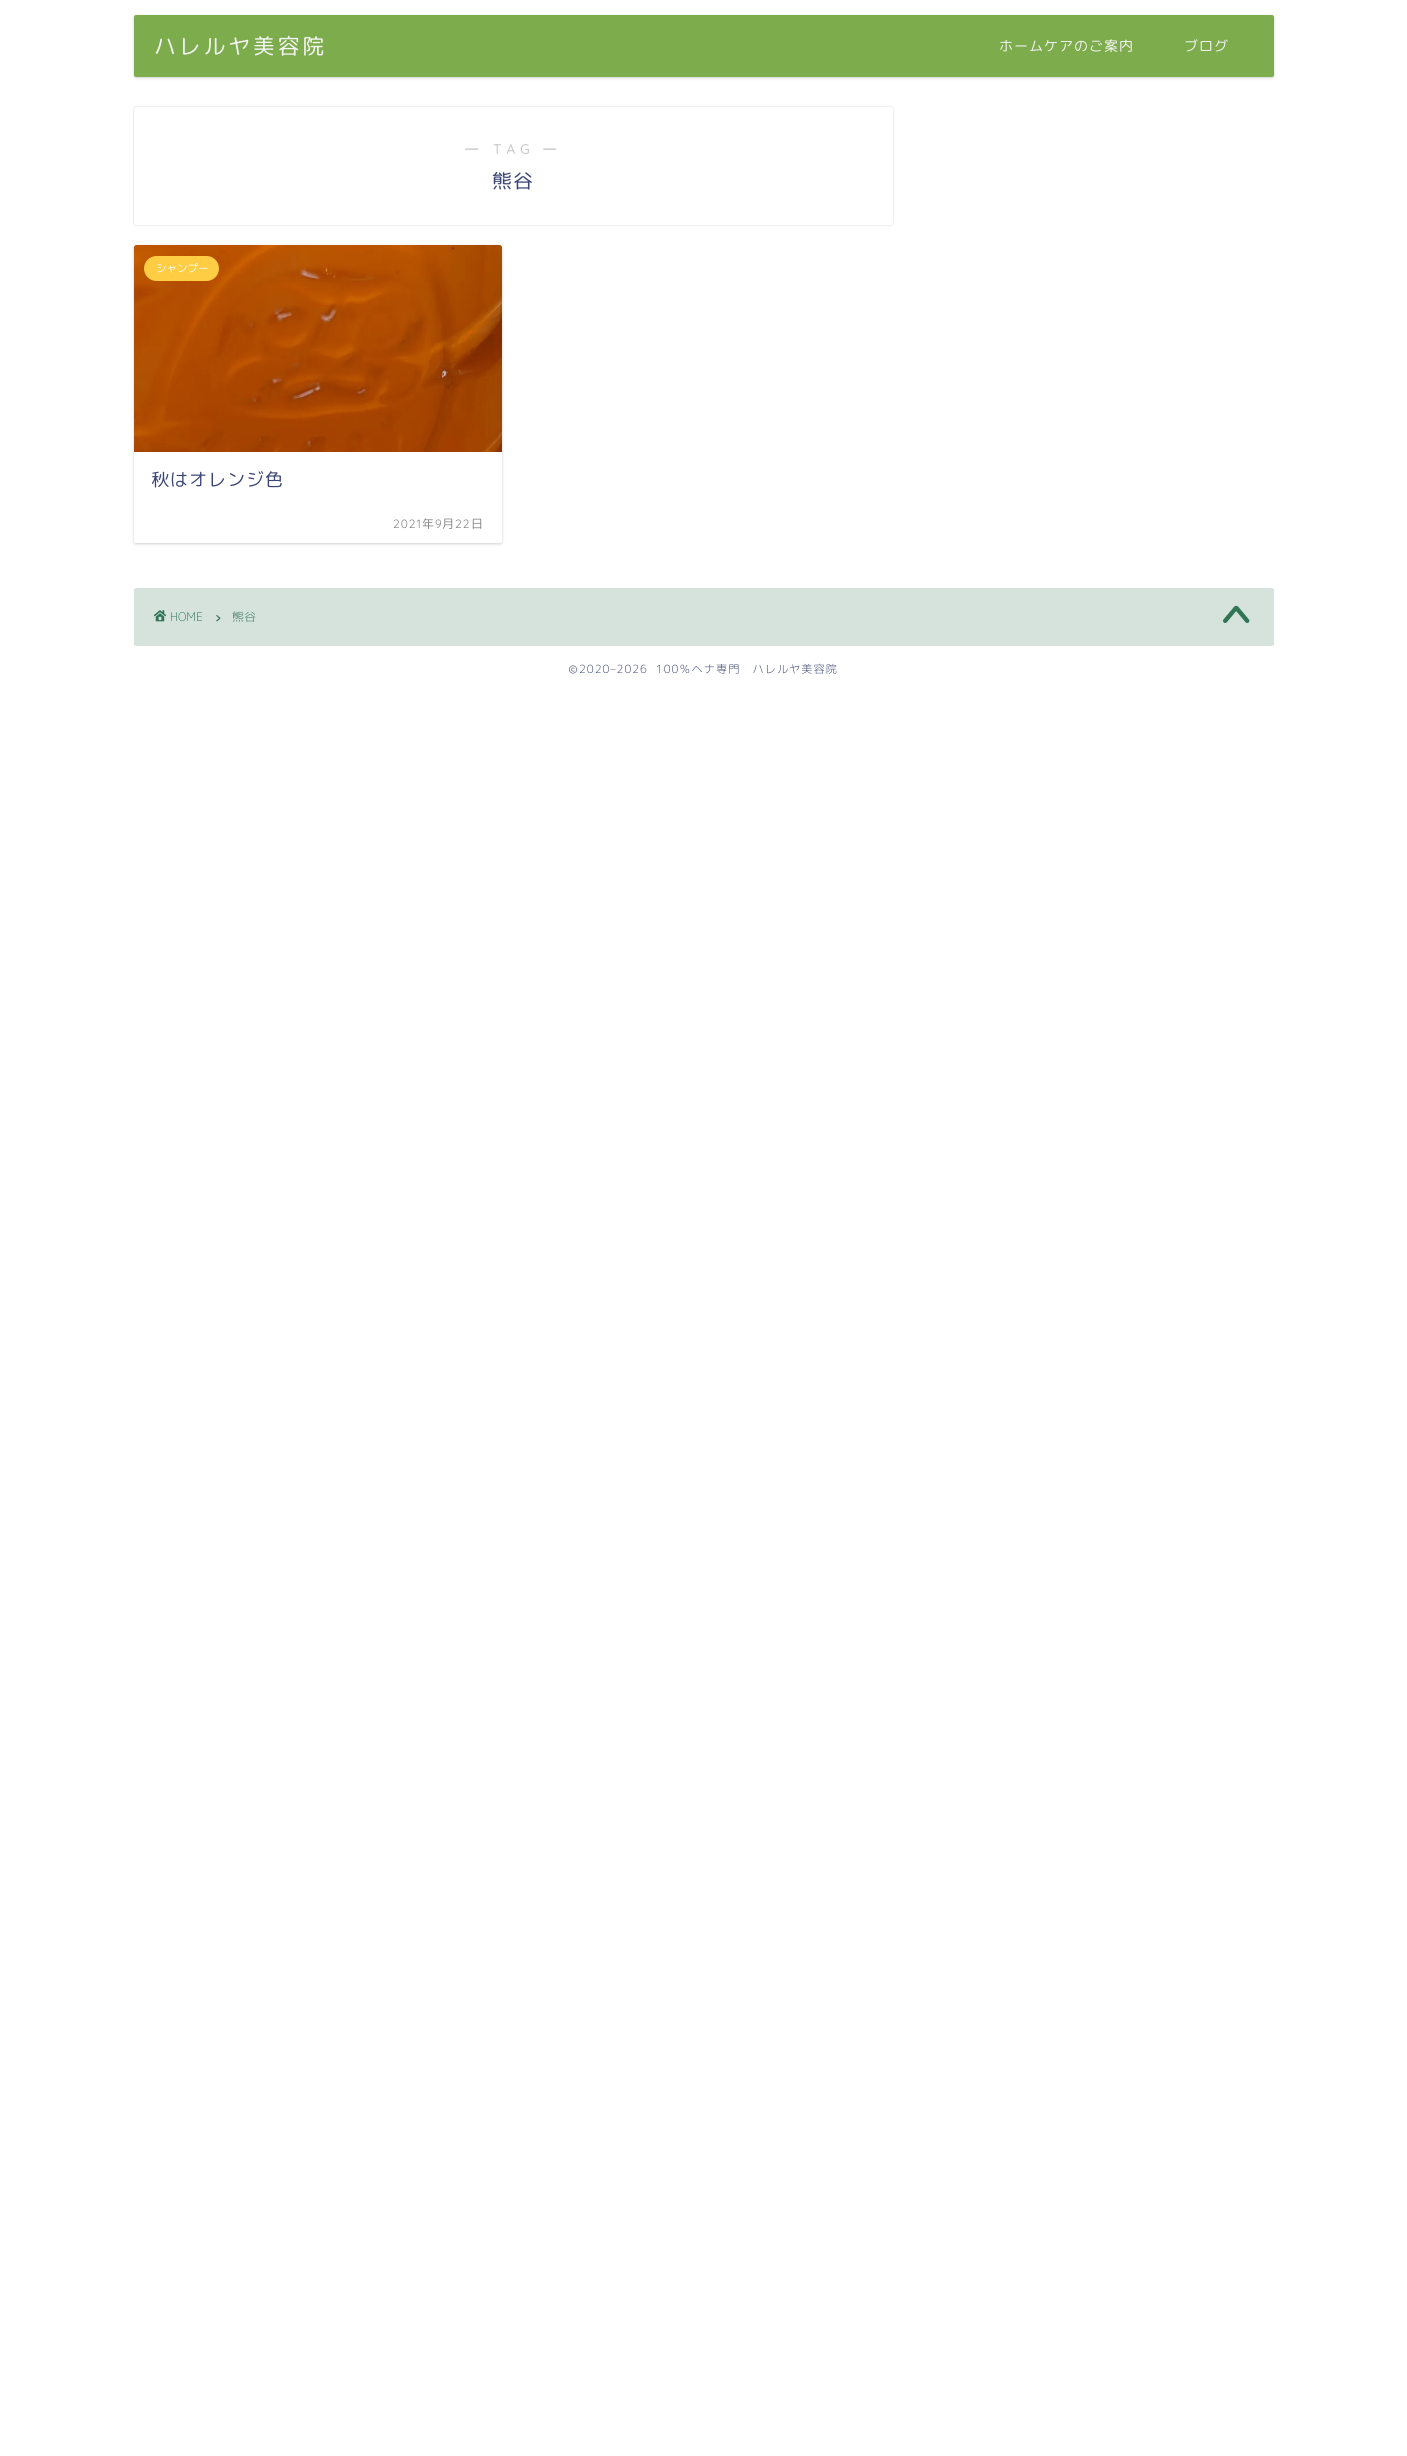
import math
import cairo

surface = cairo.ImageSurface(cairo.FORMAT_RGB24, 1407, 2456)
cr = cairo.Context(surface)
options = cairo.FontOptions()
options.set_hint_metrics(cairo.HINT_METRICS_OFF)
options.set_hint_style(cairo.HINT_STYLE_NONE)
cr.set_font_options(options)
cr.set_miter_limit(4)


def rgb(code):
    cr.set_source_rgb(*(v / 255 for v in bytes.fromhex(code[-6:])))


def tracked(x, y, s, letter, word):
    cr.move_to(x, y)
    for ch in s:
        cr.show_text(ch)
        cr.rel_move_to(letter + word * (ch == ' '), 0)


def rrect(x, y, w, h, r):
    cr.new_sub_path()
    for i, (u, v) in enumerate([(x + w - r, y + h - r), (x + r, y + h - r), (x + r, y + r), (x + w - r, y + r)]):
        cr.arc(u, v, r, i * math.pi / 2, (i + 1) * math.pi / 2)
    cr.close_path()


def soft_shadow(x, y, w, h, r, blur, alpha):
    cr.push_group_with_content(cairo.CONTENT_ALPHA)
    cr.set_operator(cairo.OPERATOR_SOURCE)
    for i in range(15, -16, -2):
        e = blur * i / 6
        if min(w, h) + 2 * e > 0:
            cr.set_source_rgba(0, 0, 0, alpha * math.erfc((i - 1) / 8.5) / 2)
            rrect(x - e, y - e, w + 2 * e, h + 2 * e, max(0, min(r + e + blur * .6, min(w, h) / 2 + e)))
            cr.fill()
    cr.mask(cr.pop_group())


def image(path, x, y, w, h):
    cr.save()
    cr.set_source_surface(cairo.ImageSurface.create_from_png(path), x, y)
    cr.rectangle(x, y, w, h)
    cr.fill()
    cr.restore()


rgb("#ffffff")
cr.paint()
cr.save()
cr.set_fill_rule(cairo.FILL_RULE_EVEN_ODD)
cr.new_path()
cr.move_to(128, 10)
cr.line_to(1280, 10)
cr.line_to(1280, 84)
cr.line_to(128, 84)
cr.close_path()
cr.move_to(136, 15)
cr.line_to(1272, 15)
cr.curve_to(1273, 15, 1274, 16, 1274, 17)
cr.line_to(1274, 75)
cr.curve_to(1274, 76, 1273, 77, 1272, 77)
cr.line_to(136, 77)
cr.curve_to(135, 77, 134, 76, 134, 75)
cr.line_to(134, 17)
cr.curve_to(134, 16, 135, 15, 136, 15)
cr.close_path()
cr.clip()
rgb("#000000")
soft_shadow(134, 16, 1140, 62, 2, 1.5, 0.18)
cr.restore()
cr.set_source_rgba(0.278, 0.537, 0, 0.7)
rrect(134, 15, 1140, 62, 2)
cr.fill()
rgb("#000000")
soft_shadow(134, 107, 759, 118, 2, 1, 0.18)
rgb("#ffffff")
rrect(134, 107, 759, 118, 2)
cr.fill()
rgb("#000000")
soft_shadow(134, 246, 368, 298, 2, 1.5, 0.18)
rgb("#ffffff")
rrect(134, 245, 368, 298, 2)
cr.fill()
image("img/1.png", 134, 245, 368, 207)
rgb("#ffcd44")
rrect(144, 256, 75, 25, 12.5)
cr.fill()
rgb("#d6e3dd")
rrect(134, 588, 1140, 58, 2)
cr.fill()
image("img/2.png", 154, 610, 12, 12)
image("img/3.png", 216, 615, 5, 7)
image("img/4.png", 1223, 605, 27, 18)
image("img/5.png", 569, 665, 8, 9)
cr.select_font_face("Rounded Mplus 1c")
cr.set_font_size(21.75)
rgb("#f4f4f4")
tracked(154, 54, "ハレルヤ美容院", 3, 0)
cr.set_font_size(14)
tracked(999, 51, "ホームケアのご案内", 1, 0)
tracked(1184, 51, "ブログ", 1, 0)
cr.select_font_face("Rounded Mplus 1c Bold", cairo.FONT_SLANT_NORMAL, cairo.FONT_WEIGHT_BOLD)
cr.set_font_size(13.5)
rgb("#cccccc")
tracked(465, 154, "―", 5, 0)
cr.select_font_face("Quicksand", cairo.FONT_SLANT_NORMAL, cairo.FONT_WEIGHT_BOLD)
tracked(493, 154, "TAG", 5, 0)
cr.select_font_face("Rounded Mplus 1c Bold", cairo.FONT_SLANT_NORMAL, cairo.FONT_WEIGHT_BOLD)
tracked(543, 154, "―", 5, 0)
cr.select_font_face("Rounded Mplus 1c")
cr.set_font_size(20)
rgb("#3b4675")
tracked(492, 188, "熊谷", 1, 0)
cr.set_font_size(10.5)
rgb("#ffffff")
cr.move_to(156, 272)
cr.show_text("シャンプー")
cr.set_font_size(18)
rgb("#3b4675")
tracked(151, 486, "秋はオレンジ色", 1, 0)
cr.select_font_face("Quicksand Light")
cr.set_font_size(12)
rgb("#888888")
tracked(393, 528, "2021", 1, 0)
cr.select_font_face("Rounded Mplus 1c")
tracked(422, 528, "年", 1, 0)
cr.select_font_face("Quicksand Light")
tracked(435, 528, "9", 1, 0)
cr.select_font_face("Rounded Mplus 1c")
tracked(442, 528, "月", 1, 0)
cr.select_font_face("Quicksand Light")
tracked(455, 528, "22", 1, 0)
cr.select_font_face("Rounded Mplus 1c")
tracked(471, 528, "日", 1, 0)
cr.select_font_face("Rounded Mplus 1c Light")
rgb("#317555")
cr.move_to(170, 621)
cr.show_text("HOME")
cr.move_to(232, 621)
cr.show_text("熊谷")
cr.set_font_size(11.2)
rgb("#3b4675")
tracked(579, 673, "2020–2026  100％ヘナ専門　ハレルヤ美容院", 1, 0)
surface.write_to_png("page.png")
